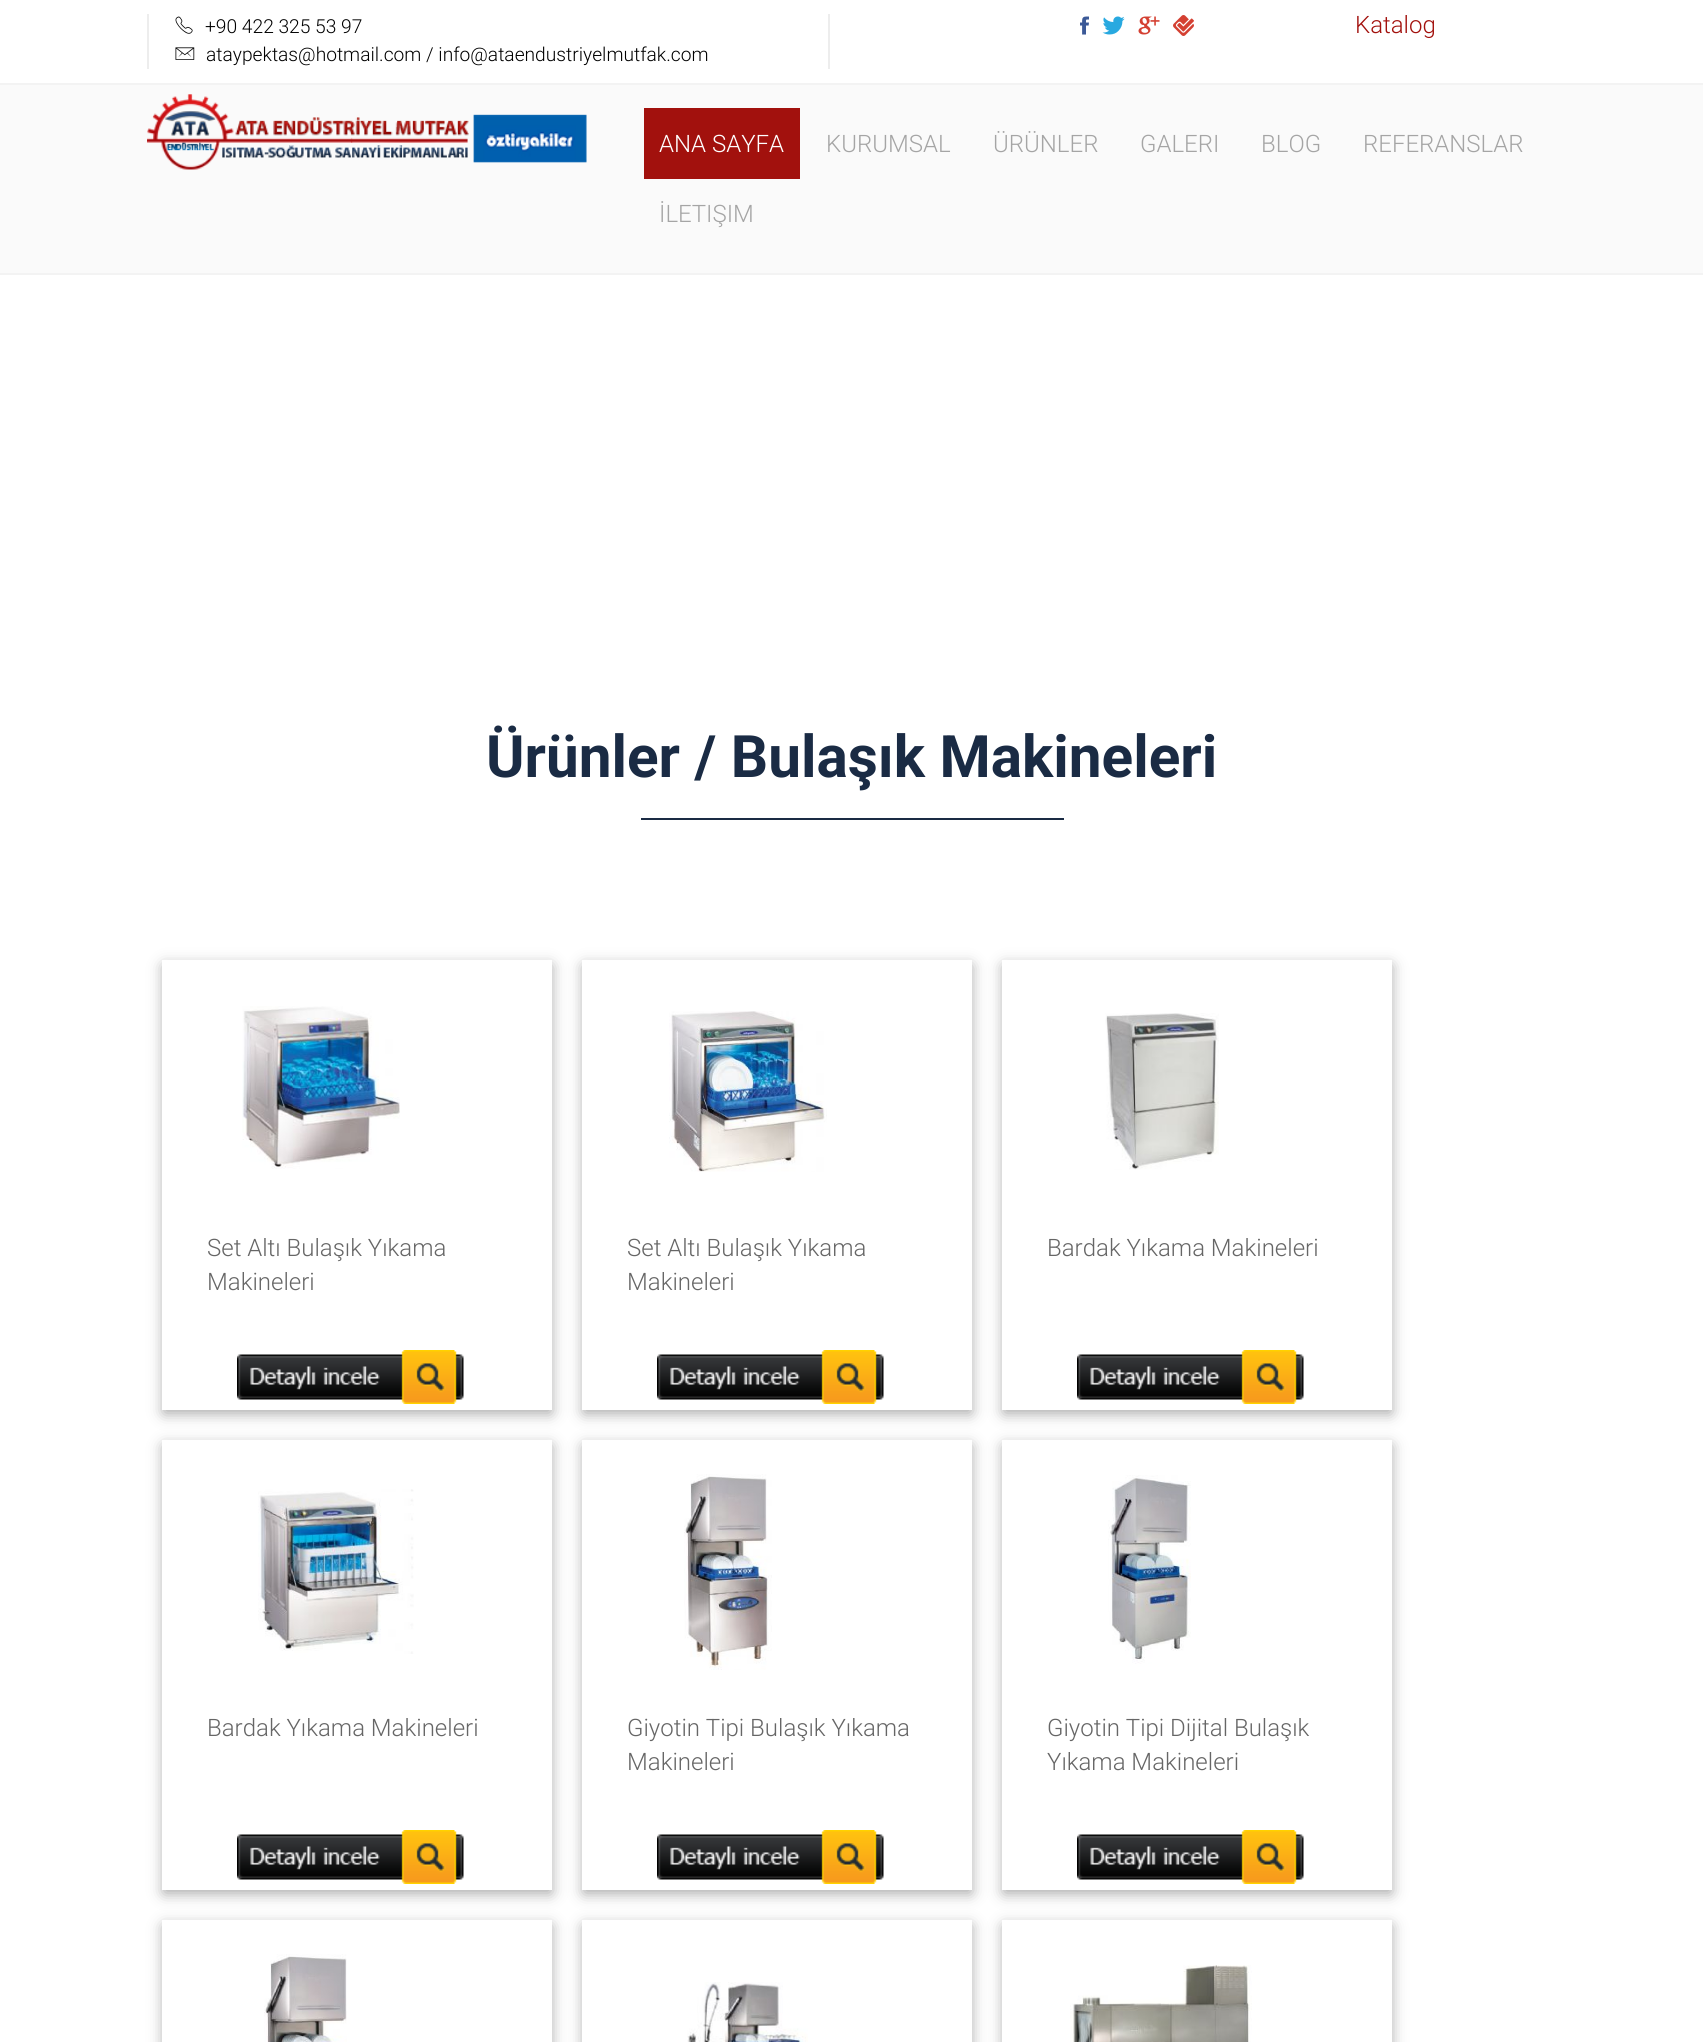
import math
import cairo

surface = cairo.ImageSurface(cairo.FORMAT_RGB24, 1703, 2042)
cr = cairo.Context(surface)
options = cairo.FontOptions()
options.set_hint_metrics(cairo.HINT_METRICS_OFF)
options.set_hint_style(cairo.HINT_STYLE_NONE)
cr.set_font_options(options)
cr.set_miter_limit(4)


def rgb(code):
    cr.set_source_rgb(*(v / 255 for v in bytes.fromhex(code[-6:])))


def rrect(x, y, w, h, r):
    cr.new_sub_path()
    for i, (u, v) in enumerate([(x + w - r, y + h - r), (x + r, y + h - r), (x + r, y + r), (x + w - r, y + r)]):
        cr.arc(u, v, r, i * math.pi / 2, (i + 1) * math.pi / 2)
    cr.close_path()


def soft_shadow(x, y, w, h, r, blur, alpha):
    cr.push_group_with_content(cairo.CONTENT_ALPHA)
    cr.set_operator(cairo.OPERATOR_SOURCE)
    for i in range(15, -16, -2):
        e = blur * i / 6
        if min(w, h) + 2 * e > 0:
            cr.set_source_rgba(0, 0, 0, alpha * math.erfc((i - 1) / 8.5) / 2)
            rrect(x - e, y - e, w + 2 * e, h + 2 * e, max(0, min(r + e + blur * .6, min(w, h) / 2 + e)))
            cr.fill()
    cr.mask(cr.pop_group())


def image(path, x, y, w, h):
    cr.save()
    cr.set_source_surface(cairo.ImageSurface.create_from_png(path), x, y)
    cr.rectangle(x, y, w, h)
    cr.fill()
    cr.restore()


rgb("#ffffff")
cr.paint()
rgb("#ededed")
cr.rectangle(828, 14, 2, 55)
cr.fill()
cr.rectangle(147, 14, 2, 55)
cr.fill()
image("img/1.png", 175, 16, 18, 18)
image("img/2.png", 175, 47, 20, 13)
image("img/3.png", 1080, 16, 9, 19)
image("img/4.png", 1102, 16, 23, 19)
image("img/5.png", 1138, 16, 22, 19)
image("img/6.png", 1173, 15, 21, 21)
for x, y, w, h, color in [
    (0, 85, 1703, 188, "#fafafa"),
    (0, 83, 1703, 2, "#f3f3f3"),
    (0, 273, 1703, 2, "#f3f3f3"),
]:
    rgb(color)
    cr.rectangle(x, y, w, h)
    cr.fill()
image("img/7.png", 147, 94, 440, 76)
rgb("#a2110d")
cr.rectangle(644, 108, 156, 71)
cr.fill()
rgb("#1a2b44")
cr.rectangle(641, 818, 423, 2)
cr.fill()
cr.save()
cr.set_fill_rule(cairo.FILL_RULE_EVEN_ODD)
cr.new_path()
cr.move_to(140, 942)
cr.line_to(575, 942)
cr.line_to(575, 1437)
cr.line_to(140, 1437)
cr.close_path()
cr.move_to(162, 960)
cr.line_to(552, 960)
cr.line_to(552, 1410)
cr.line_to(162, 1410)
cr.close_path()
cr.clip()
rgb("#7a7a7a")
soft_shadow(164, 966, 387, 447, 0, 7.5, 0.7)
cr.restore()
image("img/8.png", 242, 1006, 158, 163)
image("img/9.png", 237, 1350, 227, 54)
cr.save()
cr.set_fill_rule(cairo.FILL_RULE_EVEN_ODD)
cr.new_path()
cr.move_to(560, 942)
cr.line_to(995, 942)
cr.line_to(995, 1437)
cr.line_to(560, 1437)
cr.close_path()
cr.move_to(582, 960)
cr.line_to(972, 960)
cr.line_to(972, 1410)
cr.line_to(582, 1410)
cr.close_path()
cr.clip()
rgb("#7a7a7a")
soft_shadow(584, 966, 387, 447, 0, 7.5, 0.7)
cr.restore()
image("img/10.png", 669, 1011, 158, 161)
image("img/9.png", 657, 1350, 227, 54)
cr.save()
cr.set_fill_rule(cairo.FILL_RULE_EVEN_ODD)
cr.new_path()
cr.move_to(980, 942)
cr.line_to(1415, 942)
cr.line_to(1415, 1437)
cr.line_to(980, 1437)
cr.close_path()
cr.move_to(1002, 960)
cr.line_to(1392, 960)
cr.line_to(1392, 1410)
cr.line_to(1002, 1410)
cr.close_path()
cr.clip()
rgb("#7a7a7a")
soft_shadow(1004, 966, 387, 447, 0, 7.5, 0.7)
cr.restore()
image("img/11.png", 1105, 1013, 114, 157)
image("img/12.png", 1077, 1350, 227, 54)
cr.save()
cr.set_fill_rule(cairo.FILL_RULE_EVEN_ODD)
cr.new_path()
cr.move_to(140, 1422)
cr.line_to(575, 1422)
cr.line_to(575, 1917)
cr.line_to(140, 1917)
cr.close_path()
cr.move_to(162, 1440)
cr.line_to(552, 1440)
cr.line_to(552, 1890)
cr.line_to(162, 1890)
cr.close_path()
cr.clip()
rgb("#7a7a7a")
soft_shadow(164, 1446, 387, 447, 0, 7.5, 0.7)
cr.restore()
image("img/13.png", 258, 1489, 156, 165)
image("img/9.png", 237, 1830, 227, 54)
cr.save()
cr.set_fill_rule(cairo.FILL_RULE_EVEN_ODD)
cr.new_path()
cr.move_to(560, 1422)
cr.line_to(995, 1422)
cr.line_to(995, 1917)
cr.line_to(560, 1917)
cr.close_path()
cr.move_to(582, 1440)
cr.line_to(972, 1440)
cr.line_to(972, 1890)
cr.line_to(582, 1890)
cr.close_path()
cr.clip()
rgb("#7a7a7a")
soft_shadow(584, 1446, 387, 447, 0, 7.5, 0.7)
cr.restore()
image("img/14.png", 684, 1474, 88, 196)
image("img/9.png", 657, 1830, 227, 54)
cr.save()
cr.set_fill_rule(cairo.FILL_RULE_EVEN_ODD)
cr.new_path()
cr.move_to(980, 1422)
cr.line_to(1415, 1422)
cr.line_to(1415, 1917)
cr.line_to(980, 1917)
cr.close_path()
cr.move_to(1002, 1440)
cr.line_to(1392, 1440)
cr.line_to(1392, 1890)
cr.line_to(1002, 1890)
cr.close_path()
cr.clip()
rgb("#7a7a7a")
soft_shadow(1004, 1446, 387, 447, 0, 7.5, 0.7)
cr.restore()
image("img/15.png", 1108, 1475, 83, 189)
image("img/12.png", 1077, 1830, 227, 54)
cr.save()
cr.set_fill_rule(cairo.FILL_RULE_EVEN_ODD)
cr.new_path()
cr.move_to(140, 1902)
cr.line_to(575, 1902)
cr.line_to(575, 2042)
cr.line_to(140, 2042)
cr.close_path()
cr.move_to(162, 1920)
cr.line_to(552, 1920)
cr.line_to(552, 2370)
cr.line_to(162, 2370)
cr.close_path()
cr.clip()
rgb("#7a7a7a")
soft_shadow(164, 1926, 387, 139, 0, 7.5, 0.7)
cr.restore()
image("img/16.png", 264, 1954, 83, 88)
cr.save()
cr.set_fill_rule(cairo.FILL_RULE_EVEN_ODD)
cr.new_path()
cr.move_to(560, 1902)
cr.line_to(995, 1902)
cr.line_to(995, 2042)
cr.line_to(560, 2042)
cr.close_path()
cr.move_to(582, 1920)
cr.line_to(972, 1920)
cr.line_to(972, 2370)
cr.line_to(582, 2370)
cr.close_path()
cr.clip()
rgb("#7a7a7a")
soft_shadow(584, 1926, 387, 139, 0, 7.5, 0.7)
cr.restore()
image("img/17.png", 687, 1982, 121, 60)
cr.save()
cr.set_fill_rule(cairo.FILL_RULE_EVEN_ODD)
cr.new_path()
cr.move_to(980, 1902)
cr.line_to(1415, 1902)
cr.line_to(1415, 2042)
cr.line_to(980, 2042)
cr.close_path()
cr.move_to(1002, 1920)
cr.line_to(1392, 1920)
cr.line_to(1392, 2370)
cr.line_to(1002, 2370)
cr.close_path()
cr.clip()
rgb("#7a7a7a")
soft_shadow(1004, 1926, 387, 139, 0, 7.5, 0.7)
cr.restore()
image("img/18.png", 1070, 1965, 182, 77)
cr.select_font_face("Roboto Light")
cr.set_font_size(19.2)
rgb("#000000")
cr.move_to(205, 33)
cr.show_text("+90 422 325 53 97")
cr.move_to(206, 61)
cr.show_text("ataypektas@hotmail.com / info@ataendustriyelmutfak.com")
cr.set_font_size(24)
rgb("#a2110d")
cr.move_to(1355, 33)
cr.show_text("Katalog")
rgb("#ffffff")
cr.move_to(659, 152)
cr.show_text("ANA SAYFA")
rgb("#a5a5a5")
for x, y, s in [
    (826, 152, "KURUMSAL"),
    (993, 152, "ÜRÜNLER"),
    (1140, 152, "GALERI"),
    (1261, 152, "BLOG"),
    (1363, 152, "REFERANSLAR"),
    (659, 222, "İLETIŞIM"),
]:
    cr.move_to(x, y)
    cr.show_text(s)
cr.select_font_face("Roboto", cairo.FONT_SLANT_NORMAL, cairo.FONT_WEIGHT_BOLD)
cr.set_font_size(58.5)
rgb("#1a2b44")
cr.move_to(486, 777)
cr.show_text("Ürünler / Bulaşık Makineleri")
cr.select_font_face("Roboto Light")
cr.set_font_size(24)
rgb("#666666")
for x, y, s in [
    (207, 1256, "Set Altı Bulaşık Yıkama"),
    (207, 1290, "Makineleri"),
    (627, 1256, "Set Altı Bulaşık Yıkama"),
    (627, 1290, "Makineleri"),
    (1047, 1256, "Bardak Yıkama Makineleri"),
    (207, 1736, "Bardak Yıkama Makineleri"),
    (627, 1736, "Giyotin Tipi Bulaşık Yıkama"),
    (627, 1770, "Makineleri"),
    (1047, 1736, "Giyotin Tipi Dijital Bulaşık"),
    (1047, 1770, "Yıkama Makineleri"),
]:
    cr.move_to(x, y)
    cr.show_text(s)
surface.write_to_png("page.png")
